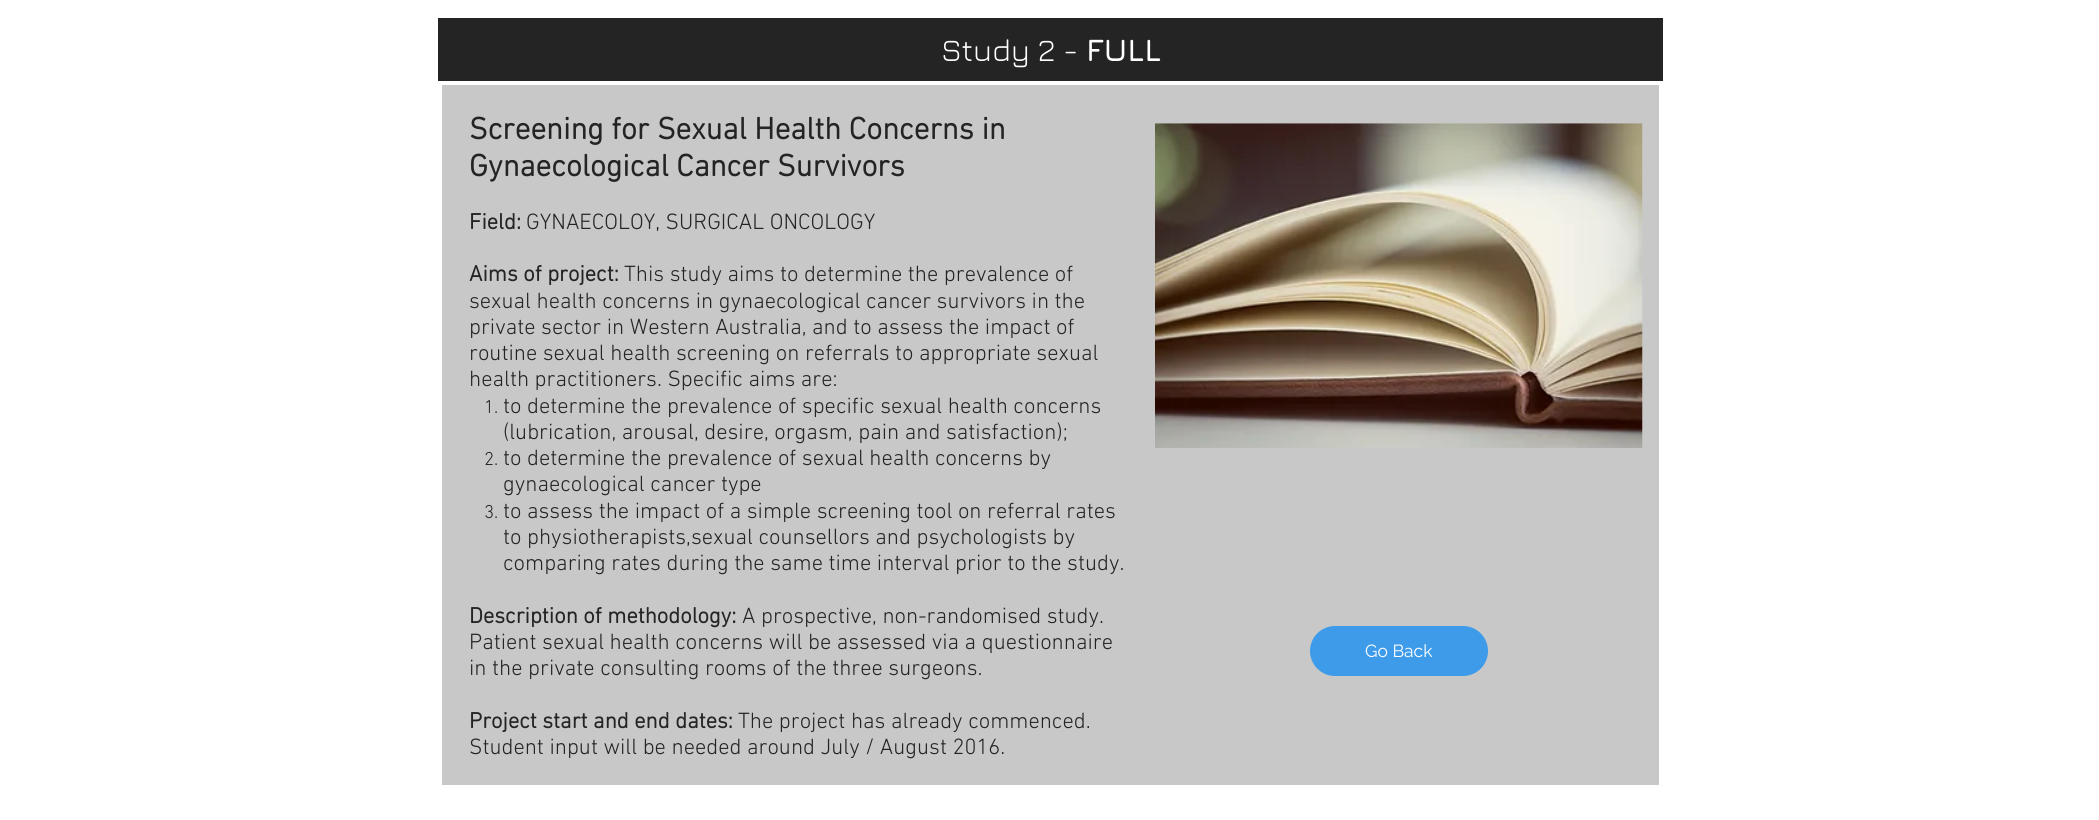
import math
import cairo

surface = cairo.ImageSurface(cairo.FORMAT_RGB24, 2099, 820)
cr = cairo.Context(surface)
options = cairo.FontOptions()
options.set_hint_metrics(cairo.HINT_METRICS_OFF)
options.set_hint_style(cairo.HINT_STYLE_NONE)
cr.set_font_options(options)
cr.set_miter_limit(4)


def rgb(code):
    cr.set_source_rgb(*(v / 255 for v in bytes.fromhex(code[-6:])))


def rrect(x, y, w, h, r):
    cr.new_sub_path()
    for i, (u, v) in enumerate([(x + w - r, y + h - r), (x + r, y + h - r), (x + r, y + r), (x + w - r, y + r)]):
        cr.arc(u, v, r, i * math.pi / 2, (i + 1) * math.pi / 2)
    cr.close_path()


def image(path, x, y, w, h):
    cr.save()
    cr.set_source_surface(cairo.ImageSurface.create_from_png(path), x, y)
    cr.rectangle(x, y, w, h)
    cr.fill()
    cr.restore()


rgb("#ffffff")
cr.paint()
rgb("#c8c8c8")
cr.rectangle(442, 85, 1217, 700)
cr.fill()
rgb("#242424")
cr.rectangle(438, 18, 1225, 63)
cr.fill()
image("img/1.png", 1155, 123, 488, 325)
rgb("#3d9be9")
rrect(1310, 626, 178, 50, 25)
cr.fill()
cr.select_font_face("Jura")
cr.set_font_size(31.25)
rgb("#ffffff")
cr.move_to(941, 61)
cr.show_text("Study 2 -")
cr.select_font_face("Jura", cairo.FONT_SLANT_NORMAL, cairo.FONT_WEIGHT_BOLD)
cr.move_to(1086, 61)
cr.show_text("FULL")
cr.select_font_face("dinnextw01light", cairo.FONT_SLANT_NORMAL, cairo.FONT_WEIGHT_BOLD)
rgb("#242424")
cr.move_to(469, 139)
cr.show_text("Screening for Sexual Health Concerns in")
cr.move_to(469, 176)
cr.show_text("Gynaecological Cancer Survivors")
cr.set_font_size(22.5)
cr.move_to(469, 229)
cr.show_text("Field:")
cr.select_font_face("dinnextw01light Light")
cr.move_to(526, 229)
cr.show_text("GYNAECOLOY, SURGICAL ONCOLOGY")
cr.select_font_face("dinnextw01light", cairo.FONT_SLANT_NORMAL, cairo.FONT_WEIGHT_BOLD)
cr.move_to(469, 281)
cr.show_text("Aims of project:")
cr.select_font_face("dinnextw01light Light")
for x, y, s in [
    (624, 281, "This study aims to determine the prevalence of"),
    (469, 308, "sexual health concerns in gynaecological cancer survivors in the"),
    (469, 334, "private sector in Western Australia, and to assess the impact of"),
    (469, 360, "routine sexual health screening on referrals to appropriate sexual"),
    (469, 386, "health practitioners. Specific aims are:"),
]:
    cr.move_to(x, y)
    cr.show_text(s)
cr.set_font_size(19)
cr.move_to(484, 413)
cr.show_text("1.")
cr.set_font_size(22.5)
cr.move_to(503, 413)
cr.show_text("to determine the prevalence of specific sexual health concerns")
cr.move_to(503, 439)
cr.show_text("(lubrication, arousal, desire, orgasm, pain and satisfaction);")
cr.set_font_size(19)
cr.move_to(484, 465)
cr.show_text("2.")
cr.set_font_size(22.5)
cr.move_to(503, 465)
cr.show_text("to determine the prevalence of sexual health concerns by")
cr.move_to(503, 491)
cr.show_text("gynaecological cancer type")
cr.set_font_size(19)
cr.move_to(484, 518)
cr.show_text("3.")
cr.set_font_size(22.5)
for x, y, s in [
    (503, 518, "to assess the impact of a simple screening tool on referral rates"),
    (503, 544, "to physiotherapists,sexual counsellors and psychologists by"),
    (503, 570, "comparing rates during the same time interval prior to the study."),
]:
    cr.move_to(x, y)
    cr.show_text(s)
cr.select_font_face("dinnextw01light", cairo.FONT_SLANT_NORMAL, cairo.FONT_WEIGHT_BOLD)
cr.move_to(469, 623)
cr.show_text("Description of methodology:")
cr.select_font_face("dinnextw01light Light")
for x, y, s in [
    (742, 623, "A prospective, non-randomised study."),
    (469, 649, "Patient sexual health concerns will be assessed via a questionnaire"),
    (469, 675, "in the private consulting rooms of the three surgeons."),
]:
    cr.move_to(x, y)
    cr.show_text(s)
cr.select_font_face("dinnextw01light", cairo.FONT_SLANT_NORMAL, cairo.FONT_WEIGHT_BOLD)
cr.move_to(469, 728)
cr.show_text("Project start and end dates:")
cr.select_font_face("dinnextw01light Light")
cr.move_to(738, 728)
cr.show_text("The project has already commenced.")
cr.move_to(469, 754)
cr.show_text("Student input will be needed around July / August 2016.")
cr.select_font_face("Raleway")
cr.set_font_size(17.5)
rgb("#ffffff")
cr.move_to(1365, 657)
cr.show_text("Go Back")
surface.write_to_png("page.png")
